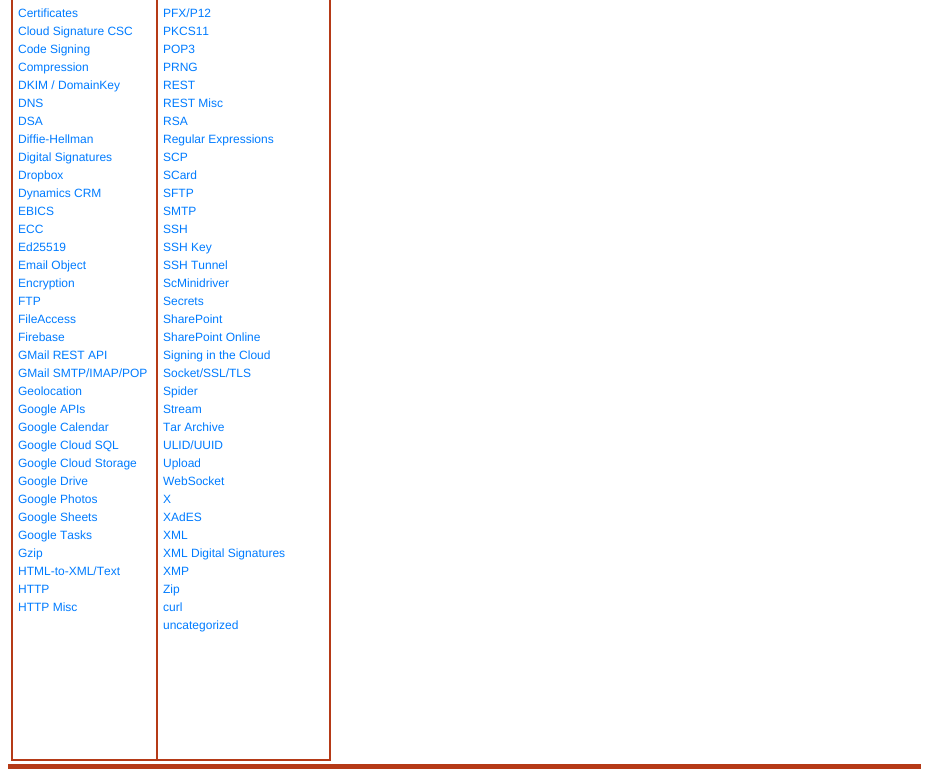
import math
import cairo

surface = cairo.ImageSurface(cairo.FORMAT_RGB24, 929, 769)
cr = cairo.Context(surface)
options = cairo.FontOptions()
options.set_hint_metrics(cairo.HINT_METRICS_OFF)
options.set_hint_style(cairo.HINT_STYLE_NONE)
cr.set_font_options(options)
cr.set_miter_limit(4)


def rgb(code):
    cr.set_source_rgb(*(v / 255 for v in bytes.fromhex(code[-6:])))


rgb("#ffffff")
cr.paint()
cr.rectangle(11.5, -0.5, 319, 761)
rgb("#b53a17")
cr.set_line_width(1)
cr.stroke()
cr.rectangle(12.5, -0.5, 144, 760)
cr.stroke()
cr.rectangle(157.5, -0.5, 172, 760)
cr.stroke()
cr.rectangle(8, 764, 913, 5)
cr.fill()
cr.select_font_face("Liberation Sans")
cr.set_font_size(12)
rgb("#007bff")
for x, y, s in [
    (18, 17, "Certificates"),
    (18, 35, "Cloud Signature CSC"),
    (18, 53, "Code Signing"),
    (18, 71, "Compression"),
    (18, 89, "DKIM / DomainKey"),
    (18, 107, "DNS"),
    (18, 125, "DSA"),
    (18, 143, "Diffie-Hellman"),
    (18, 161, "Digital Signatures"),
    (18, 179, "Dropbox"),
    (18, 197, "Dynamics CRM"),
    (18, 215, "EBICS"),
    (18, 233, "ECC"),
    (18, 251, "Ed25519"),
    (18, 269, "Email Object"),
    (18, 287, "Encryption"),
    (18, 305, "FTP"),
    (18, 323, "FileAccess"),
    (18, 341, "Firebase"),
    (18, 359, "GMail REST API"),
    (18, 377, "GMail SMTP/IMAP/POP"),
    (18, 395, "Geolocation"),
    (18, 413, "Google APIs"),
    (18, 431, "Google Calendar"),
    (18, 449, "Google Cloud SQL"),
    (18, 467, "Google Cloud Storage"),
    (18, 485, "Google Drive"),
    (18, 503, "Google Photos"),
    (18, 521, "Google Sheets"),
    (18, 539, "Google Tasks"),
    (18, 557, "Gzip"),
    (18, 575, "HTML-to-XML/Text"),
    (18, 593, "HTTP"),
    (18, 611, "HTTP Misc"),
    (163, 17, "PFX/P12"),
    (163, 35, "PKCS11"),
    (163, 53, "POP3"),
    (163, 71, "PRNG"),
    (163, 89, "REST"),
    (163, 107, "REST Misc"),
    (163, 125, "RSA"),
    (163, 143, "Regular Expressions"),
    (163, 161, "SCP"),
    (163, 179, "SCard"),
    (163, 197, "SFTP"),
    (163, 215, "SMTP"),
    (163, 233, "SSH"),
    (163, 251, "SSH Key"),
    (163, 269, "SSH Tunnel"),
    (163, 287, "ScMinidriver"),
    (163, 305, "Secrets"),
    (163, 323, "SharePoint"),
    (163, 341, "SharePoint Online"),
    (163, 359, "Signing in the Cloud"),
    (163, 377, "Socket/SSL/TLS"),
    (163, 395, "Spider"),
    (163, 413, "Stream"),
    (163, 431, "Tar Archive"),
    (163, 449, "ULID/UUID"),
    (163, 467, "Upload"),
    (163, 485, "WebSocket"),
    (163, 503, "X"),
    (163, 521, "XAdES"),
    (163, 539, "XML"),
    (163, 557, "XML Digital Signatures"),
    (163, 575, "XMP"),
    (163, 593, "Zip"),
    (163, 611, "curl"),
    (163, 629, "uncategorized"),
]:
    cr.move_to(x, y)
    cr.show_text(s)
surface.write_to_png("page.png")
